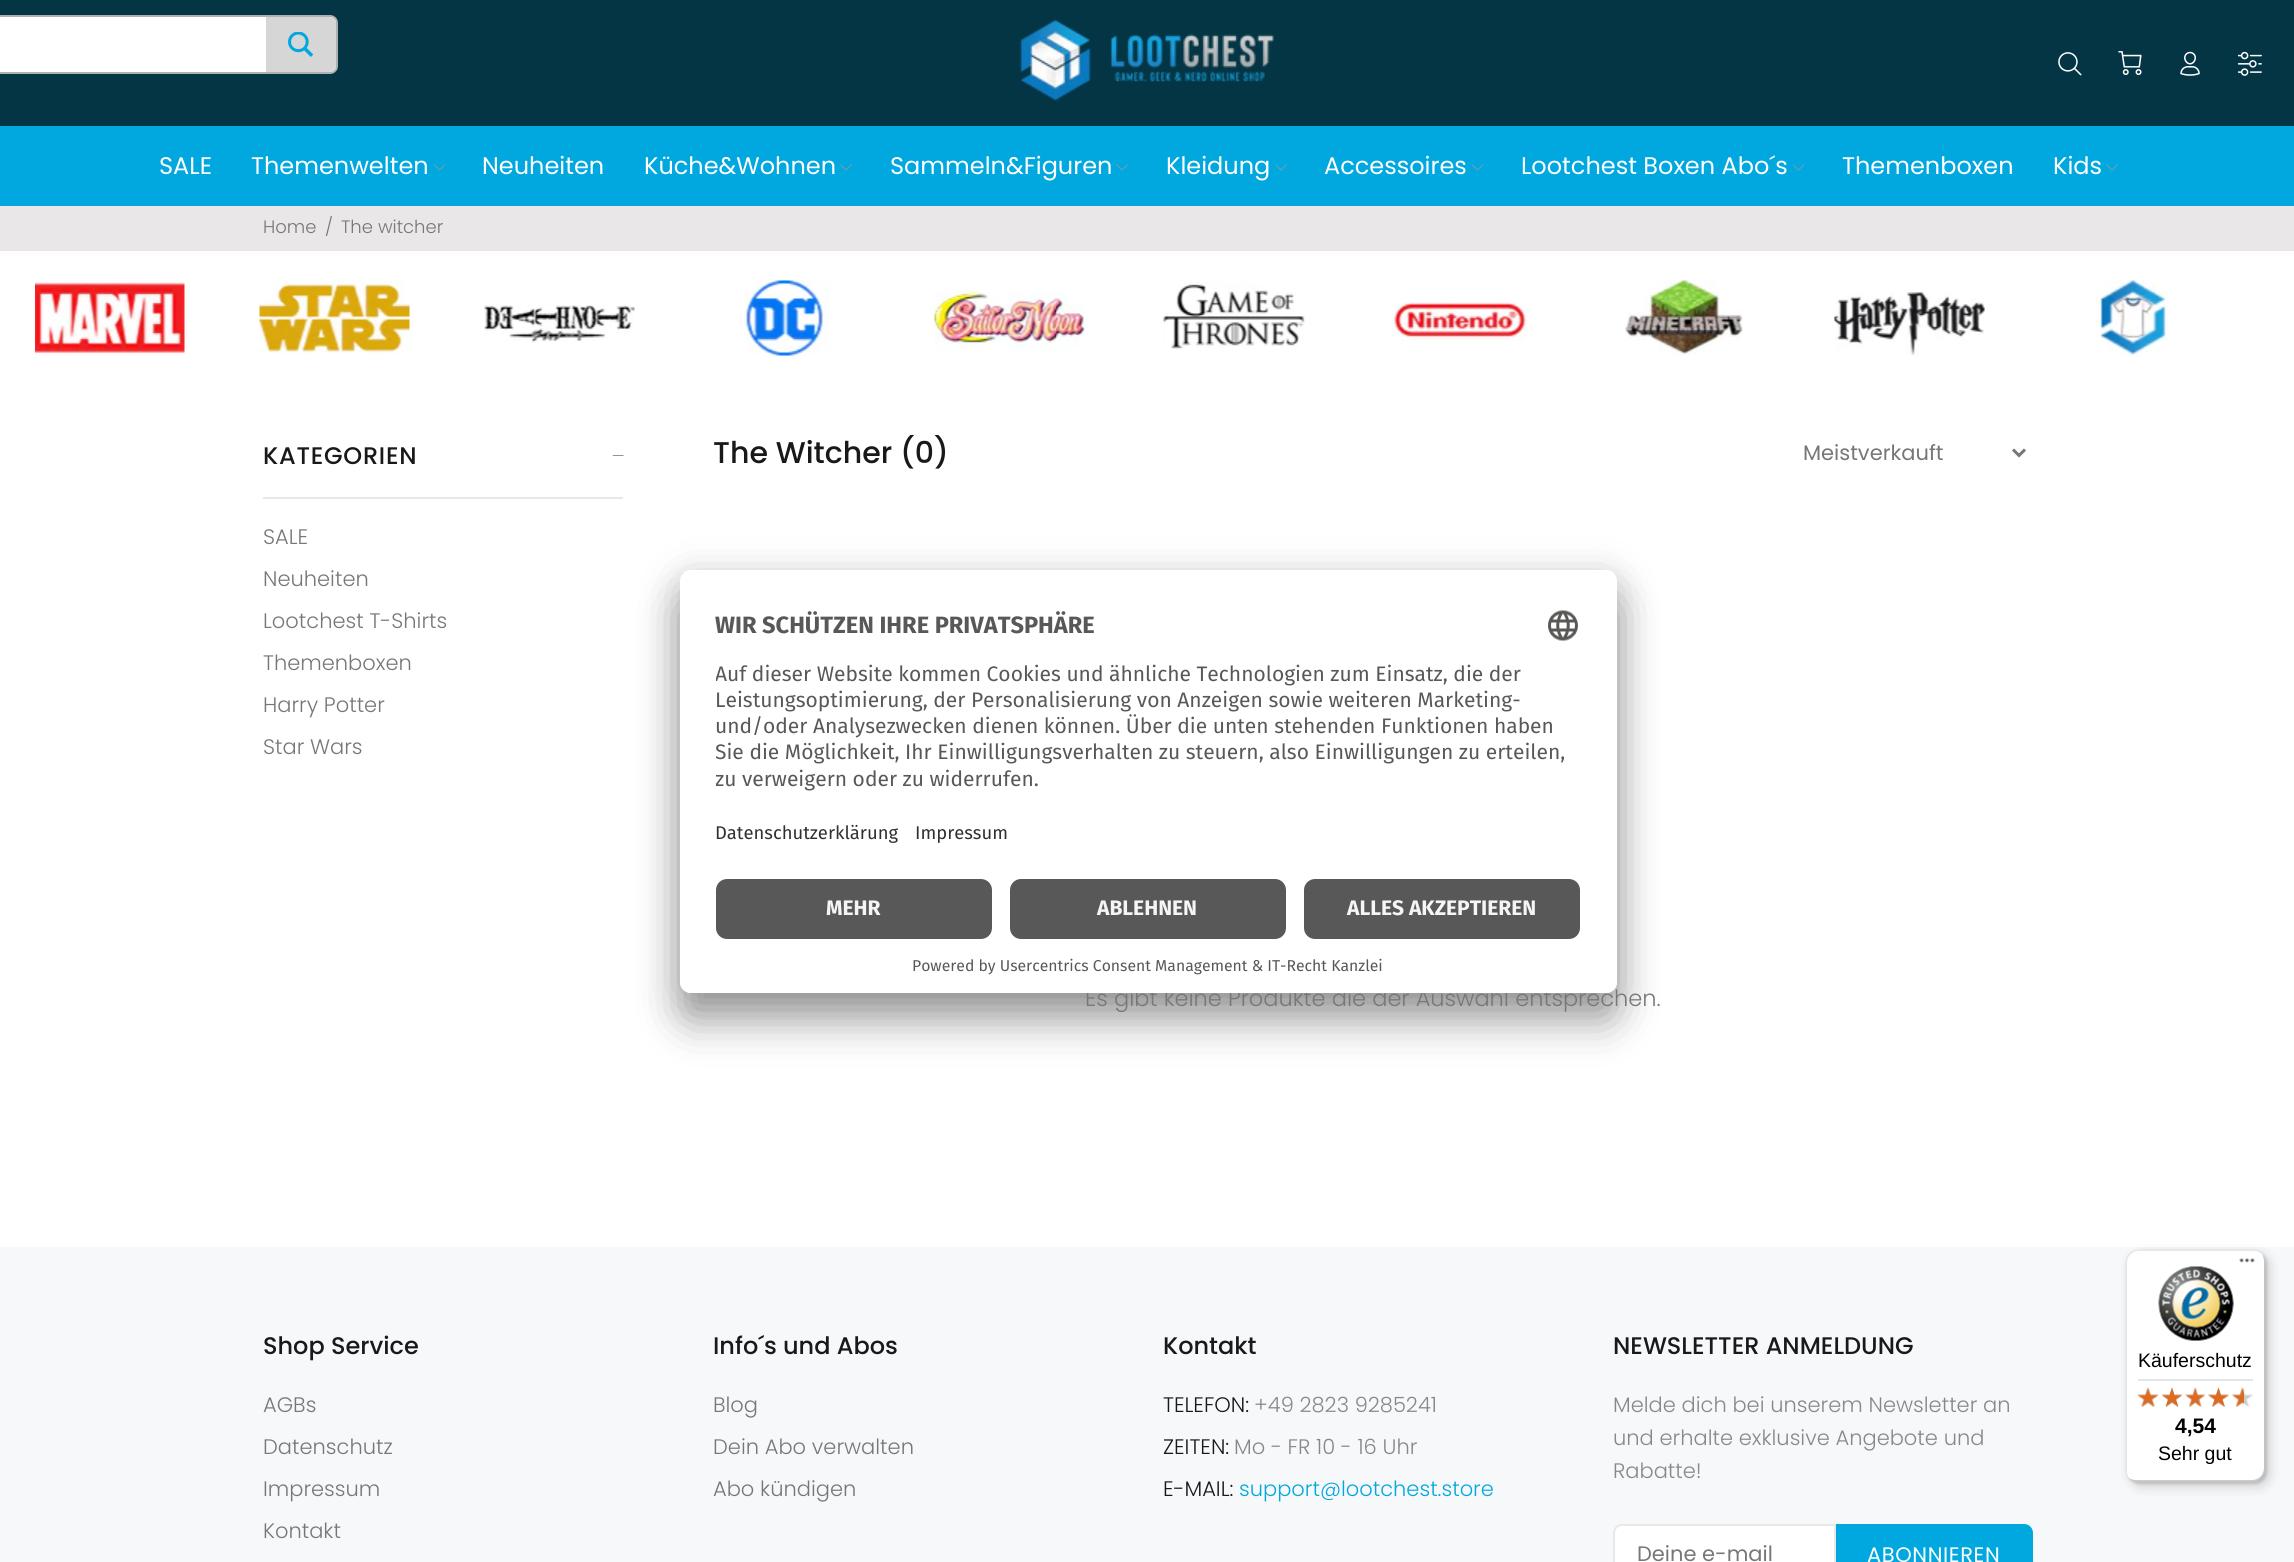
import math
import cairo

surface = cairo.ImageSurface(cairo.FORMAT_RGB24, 2294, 1562)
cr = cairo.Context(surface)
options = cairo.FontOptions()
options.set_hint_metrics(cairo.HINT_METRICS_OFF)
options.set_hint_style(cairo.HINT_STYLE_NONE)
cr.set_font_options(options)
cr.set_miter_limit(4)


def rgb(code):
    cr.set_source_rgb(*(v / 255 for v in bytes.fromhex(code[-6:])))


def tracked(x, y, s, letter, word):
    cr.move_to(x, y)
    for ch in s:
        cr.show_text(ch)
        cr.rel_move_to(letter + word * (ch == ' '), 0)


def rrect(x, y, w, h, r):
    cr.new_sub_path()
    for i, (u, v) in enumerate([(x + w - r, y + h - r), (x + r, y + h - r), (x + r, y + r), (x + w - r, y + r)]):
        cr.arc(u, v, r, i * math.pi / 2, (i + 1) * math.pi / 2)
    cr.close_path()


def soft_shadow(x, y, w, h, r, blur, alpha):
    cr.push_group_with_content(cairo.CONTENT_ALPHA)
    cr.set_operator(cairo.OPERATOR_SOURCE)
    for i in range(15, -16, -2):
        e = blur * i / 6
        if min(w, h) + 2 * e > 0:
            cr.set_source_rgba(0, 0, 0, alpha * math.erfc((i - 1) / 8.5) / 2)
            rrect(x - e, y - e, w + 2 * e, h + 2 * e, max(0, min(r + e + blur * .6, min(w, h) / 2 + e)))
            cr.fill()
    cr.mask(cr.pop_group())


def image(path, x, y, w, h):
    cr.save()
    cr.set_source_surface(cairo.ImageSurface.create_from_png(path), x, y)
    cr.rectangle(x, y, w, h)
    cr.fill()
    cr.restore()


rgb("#ffffff")
cr.paint()
rgb("#043545")
cr.rectangle(0, 0, 2294, 126)
cr.fill()
rgb("#ffffff")
rrect(-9, 16, 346, 57, 7)
cr.fill_preserve()
rgb("#b0b0b0")
cr.stroke()
rgb("#d6d6d6")
cr.new_path()
cr.move_to(266, 17)
cr.line_to(330, 17)
cr.curve_to(333.5, 17, 336, 19.5, 336, 23)
cr.line_to(336, 66)
cr.curve_to(336, 69.5, 333.5, 72, 330, 72)
cr.line_to(266, 72)
cr.close_path()
cr.fill()
image("img/1.png", 288, 32, 26, 25)
image("img/2.png", 1019, 19, 255, 82)
image("img/3.png", 2058, 52, 24, 24)
image("img/4.png", 2118, 51, 24, 24)
image("img/5.png", 2180, 51, 20, 25)
image("img/6.png", 2237, 51, 25, 25)
rgb("#01a8df")
cr.rectangle(0, 126, 2294, 80)
cr.fill()
image("img/7.png", 433, 164, 13, 7)
image("img/8.png", 840, 164, 12, 7)
image("img/8.png", 1116, 164, 12, 7)
image("img/8.png", 1275, 164, 12, 7)
image("img/7.png", 1471, 164, 13, 7)
image("img/7.png", 1792, 164, 13, 7)
image("img/8.png", 2106, 164, 12, 7)
rgb("#e9e7e7")
cr.rectangle(0, 206, 2294, 45)
cr.fill()
image("img/9.png", 35, 280, 150, 76)
image("img/10.png", 259, 280, 151, 74)
image("img/11.png", 484, 305, 151, 38)
image("img/12.png", 744, 280, 86, 76)
image("img/13.png", 934, 291, 151, 61)
image("img/14.png", 1162, 282, 143, 67)
image("img/15.png", 1391, 302, 138, 39)
image("img/16.png", 1625, 280, 118, 75)
image("img/17.png", 1834, 292, 151, 64)
image("img/18.png", 2095, 280, 73, 76)
cr.rectangle(263, 497, 360, 2)
cr.fill()
rgb("#191919")
cr.new_path()
cr.move_to(623.5, 455.5)
cr.line_to(623.5, 456)
cr.line_to(612.5, 456)
cr.line_to(613, 455.5)
cr.close_path()
cr.fill()
cr.new_path()
cr.move_to(2013, 449.5)
cr.line_to(2019, 455.5)
cr.line_to(2025, 449.5)
rgb("#777777")
cr.set_line_width(3)
cr.stroke()
rgb("#000000")
soft_shadow(680, 600, 937, 423, 11, 21, 0.3)
soft_shadow(680, 578, 937, 423, 11, 19.5, 0.22)
rgb("#f7f8fa")
cr.rectangle(0, 1247, 2294, 315)
cr.fill()
rgb("#ffffff")
cr.new_path()
cr.move_to(1622, 1525)
cr.line_to(1835, 1525)
cr.line_to(1835, 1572)
cr.line_to(1622, 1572)
cr.curve_to(1617.5, 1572, 1614, 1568.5, 1614, 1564)
cr.line_to(1614, 1533)
cr.curve_to(1614, 1528.5, 1617.5, 1525, 1622, 1525)
cr.close_path()
cr.fill_preserve()
rgb("#e9e7e7")
cr.set_line_width(2)
cr.stroke()
rgb("#01a8df")
cr.new_path()
cr.move_to(1837, 1525)
cr.line_to(2024, 1525)
cr.curve_to(2028.5, 1525, 2032, 1528.5, 2032, 1533)
cr.line_to(2032, 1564)
cr.curve_to(2032, 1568.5, 2028.5, 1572, 2024, 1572)
cr.line_to(1837, 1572)
cr.close_path()
cr.fill_preserve()
cr.stroke()
rgb("#000000")
soft_shadow(2130, 1254, 140, 233, 12, 6, 0.15)
soft_shadow(2127, 1251, 140, 233, 12, 1.5, 0.15)
rgb("#ffffff")
rrect(2126, 1250, 139, 232, 12)
cr.fill()
cr.set_source_rgba(0, 0, 0, 0.1)
cr.new_path()
cr.move_to(2139, 1251)
cr.line_to(2254, 1251)
cr.curve_to(2257, 1251, 2259, 1252, 2261, 1253)
cr.curve_to(2259, 1251, 2256, 1250, 2253, 1250)
cr.line_to(2138, 1250)
cr.curve_to(2131, 1250, 2126, 1255, 2126, 1262)
cr.line_to(2126, 1470)
cr.curve_to(2126, 1472, 2127, 1475, 2128, 1477)
cr.line_to(2127, 1472)
cr.line_to(2127, 1263)
cr.curve_to(2127, 1256, 2132, 1251, 2139, 1251)
cr.close_path()
cr.fill()
cr.set_source_rgba(0, 0, 0, 0.2)
cr.new_path()
cr.move_to(2129, 1478)
cr.curve_to(2131, 1480, 2134, 1482, 2138, 1482)
cr.line_to(2253, 1482)
cr.curve_to(2260, 1482, 2265, 1477, 2265, 1470)
cr.line_to(2265, 1262)
cr.curve_to(2265, 1260, 2264, 1257, 2263, 1256)
cr.line_to(2264, 1260)
cr.line_to(2264, 1468)
cr.curve_to(2264, 1475, 2258, 1480, 2252, 1480)
cr.line_to(2136, 1480)
cr.curve_to(2133, 1480, 2131, 1479, 2129, 1478)
cr.close_path()
cr.fill()
cr.set_source_rgba(0.196, 0.196, 0.196, 0.2)
cr.new_path()
cr.move_to(2130, 1479)
cr.curve_to(2132, 1481, 2135, 1482, 2138, 1482)
cr.line_to(2253, 1482)
cr.curve_to(2260, 1482, 2265, 1477, 2265, 1470)
cr.line_to(2265, 1262)
cr.curve_to(2265, 1259, 2264, 1256, 2262, 1254)
cr.curve_to(2263, 1256, 2264, 1258, 2264, 1261)
cr.line_to(2264, 1469)
cr.curve_to(2264, 1476, 2259, 1481, 2252, 1481)
cr.line_to(2137, 1481)
cr.curve_to(2134, 1481, 2132, 1480, 2130, 1479)
cr.close_path()
cr.fill()
cr.set_source_rgba(1, 1, 1, 0.3)
cr.new_path()
cr.move_to(2130, 1479)
cr.curve_to(2132, 1481, 2135, 1482, 2138, 1482)
cr.line_to(2253, 1482)
cr.curve_to(2260, 1482, 2265, 1477, 2265, 1470)
cr.line_to(2265, 1262)
cr.curve_to(2265, 1259, 2264, 1256, 2262, 1254)
cr.curve_to(2263, 1256, 2264, 1258, 2264, 1261)
cr.line_to(2264, 1469)
cr.curve_to(2264, 1476, 2259, 1481, 2252, 1481)
cr.line_to(2137, 1481)
cr.curve_to(2134, 1481, 2132, 1480, 2130, 1479)
cr.close_path()
cr.fill()
image("img/20.png", 2239, 1258, 16, 5)
image("img/21.png", 2158, 1266, 76, 75)
rgb("#e5e5e5")
cr.rectangle(2138, 1379, 115, 2)
cr.fill()
image("img/27.png", 2138, 1388, 20, 19)
image("img/22.png", 2137, 1387, 22, 20)
image("img/28.png", 2162, 1387, 20, 20)
image("img/23.png", 2162, 1387, 20, 20)
image("img/29.png", 2185, 1387, 20, 20)
image("img/24.png", 2185, 1387, 20, 20)
image("img/30.png", 2208, 1387, 21, 20)
image("img/25.png", 2208, 1387, 21, 20)
image("img/31.png", 2232, 1388, 21, 19)
image("img/26.png", 2232, 1387, 12, 20)
cr.select_font_face("Poppins")
cr.set_font_size(24)
rgb("#ffffff")
for x, y, s in [
    (159, 174, "SALE"),
    (251, 174, "Themenwelten"),
    (482, 174, "Neuheiten"),
    (644, 174, "Küche&Wohnen"),
    (890, 174, "Sammeln&Figuren"),
    (1166, 174, "Kleidung"),
    (1324, 174, "Accessoires"),
    (1521, 174, "Lootchest Boxen Abo´s"),
    (1842, 174, "Themenboxen"),
    (2053, 174, "Kids"),
]:
    cr.move_to(x, y)
    cr.show_text(s)
cr.select_font_face("Poppins Light")
cr.set_font_size(18)
rgb("#777777")
for x, y, s in [
    (263, 233, "Home"),
    (325, 233, "/"),
    (341, 233, "The witcher"),
]:
    cr.move_to(x, y)
    cr.show_text(s)
cr.select_font_face("Poppins Medium")
cr.set_font_size(24)
rgb("#191919")
tracked(263, 464, "KATEGORIEN", 0.75, 0)
cr.select_font_face("Poppins Light")
cr.set_font_size(21)
rgb("#777777")
for x, y, s in [
    (263, 544, "SALE"),
    (263, 586, "Neuheiten"),
    (263, 628, "Lootchest T-Shirts"),
    (263, 670, "Themenboxen"),
    (263, 712, "Harry Potter"),
    (263, 754, "Star Wars"),
]:
    cr.move_to(x, y)
    cr.show_text(s)
cr.select_font_face("Poppins Medium")
cr.set_font_size(30)
rgb("#191919")
cr.move_to(713, 463)
cr.show_text("The Witcher (0)")
cr.select_font_face("Poppins")
cr.set_font_size(21)
rgb("#777777")
cr.move_to(1803, 460)
cr.show_text("Meistverkauft")
cr.select_font_face("Poppins Light")
cr.set_font_size(22.5)
cr.move_to(1085, 1006)
cr.show_text("Es gibt keine Produkte die der Auswahl entsprechen.")
rgb("#ffffff")
rrect(680, 570, 937, 423, 11)
cr.fill()
cr.select_font_face("Fira Sans", cairo.FONT_SLANT_NORMAL, cairo.FONT_WEIGHT_BOLD)
cr.set_font_size(23.6)
rgb("#595857")
cr.move_to(715, 633)
cr.show_text("WIR SCHÜTZEN IHRE PRIVATSPHÄRE")
image("img/19.png", 1548, 610, 30, 31)
cr.save()
cr.rectangle(716, 656, 865, 142)
cr.clip()
cr.select_font_face("Fira Sans")
cr.set_font_size(21)
cr.move_to(715, 681)
cr.show_text("Auf dieser Website kommen Cookies und ähnliche Technologien zum Einsatz, die der")
cr.restore()
cr.select_font_face("Fira Sans")
cr.set_font_size(21)
cr.move_to(715, 707)
cr.show_text("Leistungsoptimierung, der Personalisierung von Anzeigen sowie weiteren Marketing-")
cr.move_to(715, 733)
cr.show_text("und/oder Analysezwecken dienen können. Über die unten stehenden Funktionen haben")
cr.save()
cr.rectangle(716, 656, 865, 142)
cr.clip()
cr.move_to(715, 759)
cr.show_text("Sie die Möglichkeit, Ihr Einwilligungsverhalten zu steuern, also Einwilligungen zu erteilen,")
cr.move_to(715, 786)
cr.show_text("zu verweigern oder zu widerrufen.")
cr.restore()
cr.set_font_size(18.4)
rgb("#303030")
cr.move_to(715, 839)
cr.show_text("Datenschutzerklärung")
cr.move_to(915, 839)
cr.show_text("Impressum")
rgb("#ffffff")
cr.new_path()
cr.move_to(680, 867)
cr.line_to(1617, 867)
cr.line_to(1617, 982)
cr.curve_to(1617, 988, 1612, 993, 1606, 993)
cr.line_to(691, 993)
cr.curve_to(685, 993, 680, 988, 680, 982)
cr.close_path()
cr.fill()
rgb("#585858")
rrect(716, 879, 276, 60, 11)
cr.fill()
cr.select_font_face("Fira Sans", cairo.FONT_SLANT_NORMAL, cairo.FONT_WEIGHT_BOLD)
cr.set_font_size(21)
rgb("#f5f5f5")
cr.move_to(826, 915)
cr.show_text("MEHR")
rgb("#585858")
rrect(1010, 879, 276, 60, 11)
cr.fill()
rgb("#f5f5f5")
cr.move_to(1097, 915)
cr.show_text("ABLEHNEN")
rgb("#585858")
rrect(1304, 879, 276, 60, 11)
cr.fill()
rgb("#f5f5f5")
cr.move_to(1347, 915)
cr.show_text("ALLES AKZEPTIEREN")
cr.select_font_face("Fira Sans")
cr.set_font_size(15.75)
rgb("#595857")
cr.move_to(912, 971)
cr.show_text("Powered by Usercentrics Consent Management & IT-Recht Kanzlei")
cr.select_font_face("Poppins Medium")
cr.set_font_size(24)
rgb("#191919")
cr.move_to(263, 1354)
cr.show_text("Shop Service")
cr.select_font_face("Poppins Light")
cr.set_font_size(21)
rgb("#777777")
for x, y, s in [
    (263, 1412, "AGBs"),
    (263, 1454, "Datenschutz"),
    (263, 1496, "Impressum"),
    (263, 1538, "Kontakt"),
]:
    cr.move_to(x, y)
    cr.show_text(s)
cr.select_font_face("Poppins Medium")
cr.set_font_size(24)
rgb("#191919")
cr.move_to(713, 1354)
cr.show_text("Info´s und Abos")
cr.select_font_face("Poppins Light")
cr.set_font_size(21)
rgb("#777777")
for x, y, s in [
    (713, 1412, "Blog"),
    (713, 1454, "Dein Abo verwalten"),
    (713, 1496, "Abo kündigen"),
]:
    cr.move_to(x, y)
    cr.show_text(s)
cr.select_font_face("Poppins Medium")
cr.set_font_size(24)
rgb("#191919")
cr.move_to(1163, 1354)
cr.show_text("Kontakt")
cr.select_font_face("Poppins Light")
cr.set_font_size(21)
cr.move_to(1163, 1412)
cr.show_text("TELEFON:")
rgb("#888888")
cr.move_to(1254, 1412)
cr.show_text("+49 2823 9285241")
rgb("#191919")
cr.move_to(1163, 1454)
cr.show_text("ZEITEN:")
rgb("#888888")
cr.move_to(1234, 1454)
cr.show_text("Mo - FR 10 - 16 Uhr")
rgb("#191919")
cr.move_to(1163, 1496)
cr.show_text("E-MAIL:")
rgb("#01a8df")
cr.move_to(1239, 1496)
cr.show_text("support@lootchest.store")
cr.select_font_face("Poppins Medium")
cr.set_font_size(24)
rgb("#191919")
cr.move_to(1613, 1354)
cr.show_text("NEWSLETTER ANMELDUNG")
cr.select_font_face("Poppins Light")
cr.set_font_size(21)
rgb("#888888")
for x, y, s in [
    (1613, 1412, "Melde dich bei unserem Newsletter an"),
    (1613, 1445, "und erhalte exklusive Angebote und"),
    (1613, 1478, "Rabatte!"),
]:
    cr.move_to(x, y)
    cr.show_text(s)
cr.select_font_face("Poppins")
rgb("#777777")
cr.move_to(1637, 1561)
cr.show_text("Deine e-mail")
rgb("#ffffff")
tracked(1867, 1562, "ABONNIEREN", 0.6, 0)
cr.select_font_face("Liberation Sans")
cr.set_font_size(19.5)
rgb("#000000")
cr.move_to(2138, 1367)
cr.show_text("Käuferschutz")
cr.select_font_face("Liberation Sans", cairo.FONT_SLANT_NORMAL, cairo.FONT_WEIGHT_BOLD)
cr.set_font_size(21)
cr.move_to(2175, 1433)
cr.show_text("4,54")
cr.select_font_face("Liberation Sans")
cr.set_font_size(19.5)
cr.move_to(2158, 1460)
cr.show_text("Sehr gut")
surface.write_to_png("page.png")
